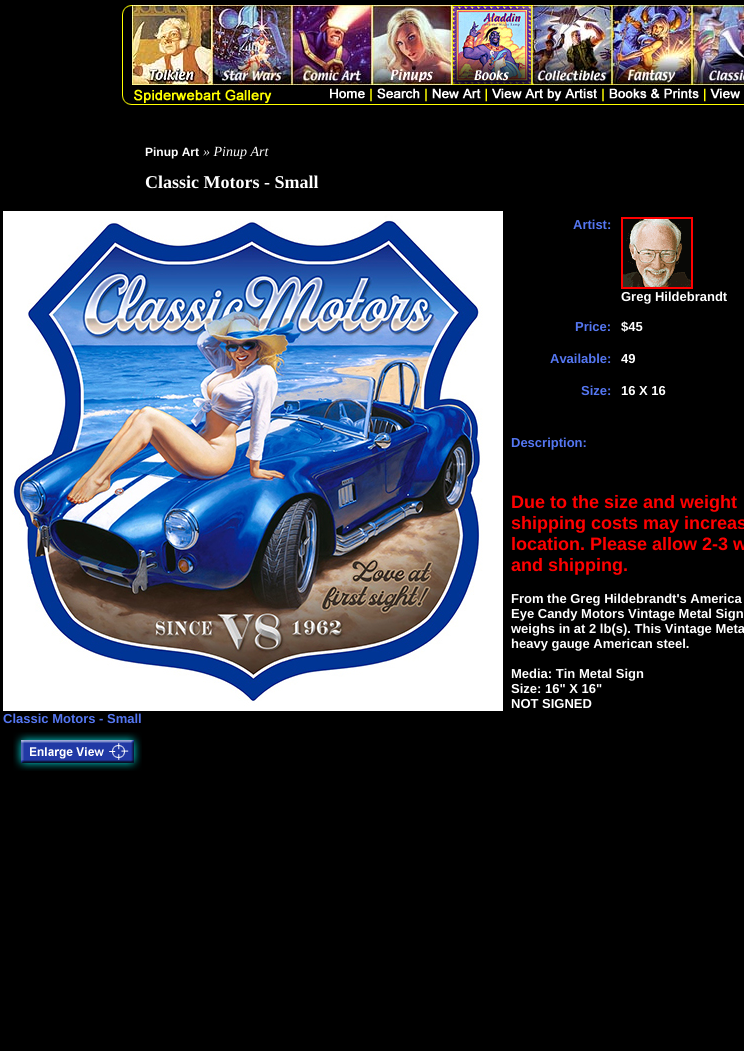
import math
import cairo

surface = cairo.ImageSurface(cairo.FORMAT_RGB24, 744, 1051)
cr = cairo.Context(surface)
options = cairo.FontOptions()
options.set_hint_metrics(cairo.HINT_METRICS_OFF)
options.set_hint_style(cairo.HINT_STYLE_NONE)
cr.set_font_options(options)
cr.set_miter_limit(4)


def rgb(code):
    cr.set_source_rgb(*(v / 255 for v in bytes.fromhex(code[-6:])))


def image(path, x, y, w, h):
    cr.save()
    cr.set_source_surface(cairo.ImageSurface.create_from_png(path), x, y)
    cr.rectangle(x, y, w, h)
    cr.fill()
    cr.restore()


rgb("#000000")
cr.paint()
image("img/1.png", 122, 5, 10, 100)
image("img/2.png", 132, 5, 80, 80)
image("img/3.png", 212, 5, 80, 80)
image("img/4.png", 292, 5, 80, 80)
image("img/5.png", 372, 5, 80, 80)
image("img/6.png", 452, 5, 80, 80)
image("img/7.png", 532, 5, 80, 80)
image("img/8.png", 612, 5, 80, 80)
image("img/9.png", 692, 5, 52, 80)
image("img/10.png", 132, 88, 612, 17)
image("img/11.png", 621, 217, 72, 72)
image("img/12.png", 3, 211, 500, 500)
image("img/13.png", 13, 732, 129, 39)
cr.select_font_face("Liberation Sans", cairo.FONT_SLANT_NORMAL, cairo.FONT_WEIGHT_BOLD)
cr.set_font_size(12)
rgb("#ffffff")
cr.move_to(145, 156)
cr.show_text("Pinup Art")
cr.select_font_face("Liberation Serif", cairo.FONT_SLANT_ITALIC)
cr.set_font_size(14)
cr.move_to(203, 156)
cr.show_text("» Pinup Art")
cr.select_font_face("Liberation Serif", cairo.FONT_SLANT_NORMAL, cairo.FONT_WEIGHT_BOLD)
cr.set_font_size(18)
cr.move_to(145, 188)
cr.show_text("Classic Motors - Small")
cr.select_font_face("Liberation Sans", cairo.FONT_SLANT_NORMAL, cairo.FONT_WEIGHT_BOLD)
cr.set_font_size(13)
rgb("#5577f2")
for x, y, s in [
    (573, 229, "Artist:"),
    (575, 331, "Price:"),
    (550, 363, "Available:"),
    (581, 395, "Size:"),
]:
    cr.move_to(x, y)
    cr.show_text(s)
rgb("#ffffff")
for x, y, s in [
    (621, 301, "Greg Hildebrandt"),
    (621, 331, "$45"),
    (621, 363, "49"),
    (621, 395, "16 X 16"),
]:
    cr.move_to(x, y)
    cr.show_text(s)
rgb("#5577f2")
cr.move_to(511, 447)
cr.show_text("Description:")
cr.set_font_size(18)
rgb("#ff0000")
for x, y, s in [
    (511, 508, "Due to the size and weight"),
    (511, 529, "shipping costs may increas"),
    (511, 550, "location. Please allow 2-3 w"),
    (511, 571, "and shipping."),
]:
    cr.move_to(x, y)
    cr.show_text(s)
cr.set_font_size(13)
rgb("#ffffff")
for x, y, s in [
    (511, 603, "From the Greg Hildebrandt's America"),
    (511, 618, "Eye Candy Motors Vintage Metal Sign"),
    (511, 633, "weighs in at 2 lb(s). This Vintage Meta"),
    (511, 648, "heavy gauge American steel."),
    (511, 678, "Media: Tin Metal Sign"),
    (511, 693, "Size: 16\" X 16\""),
    (511, 708, "NOT SIGNED"),
]:
    cr.move_to(x, y)
    cr.show_text(s)
rgb("#5577f2")
cr.move_to(3, 723)
cr.show_text("Classic Motors - Small")
surface.write_to_png("page.png")
